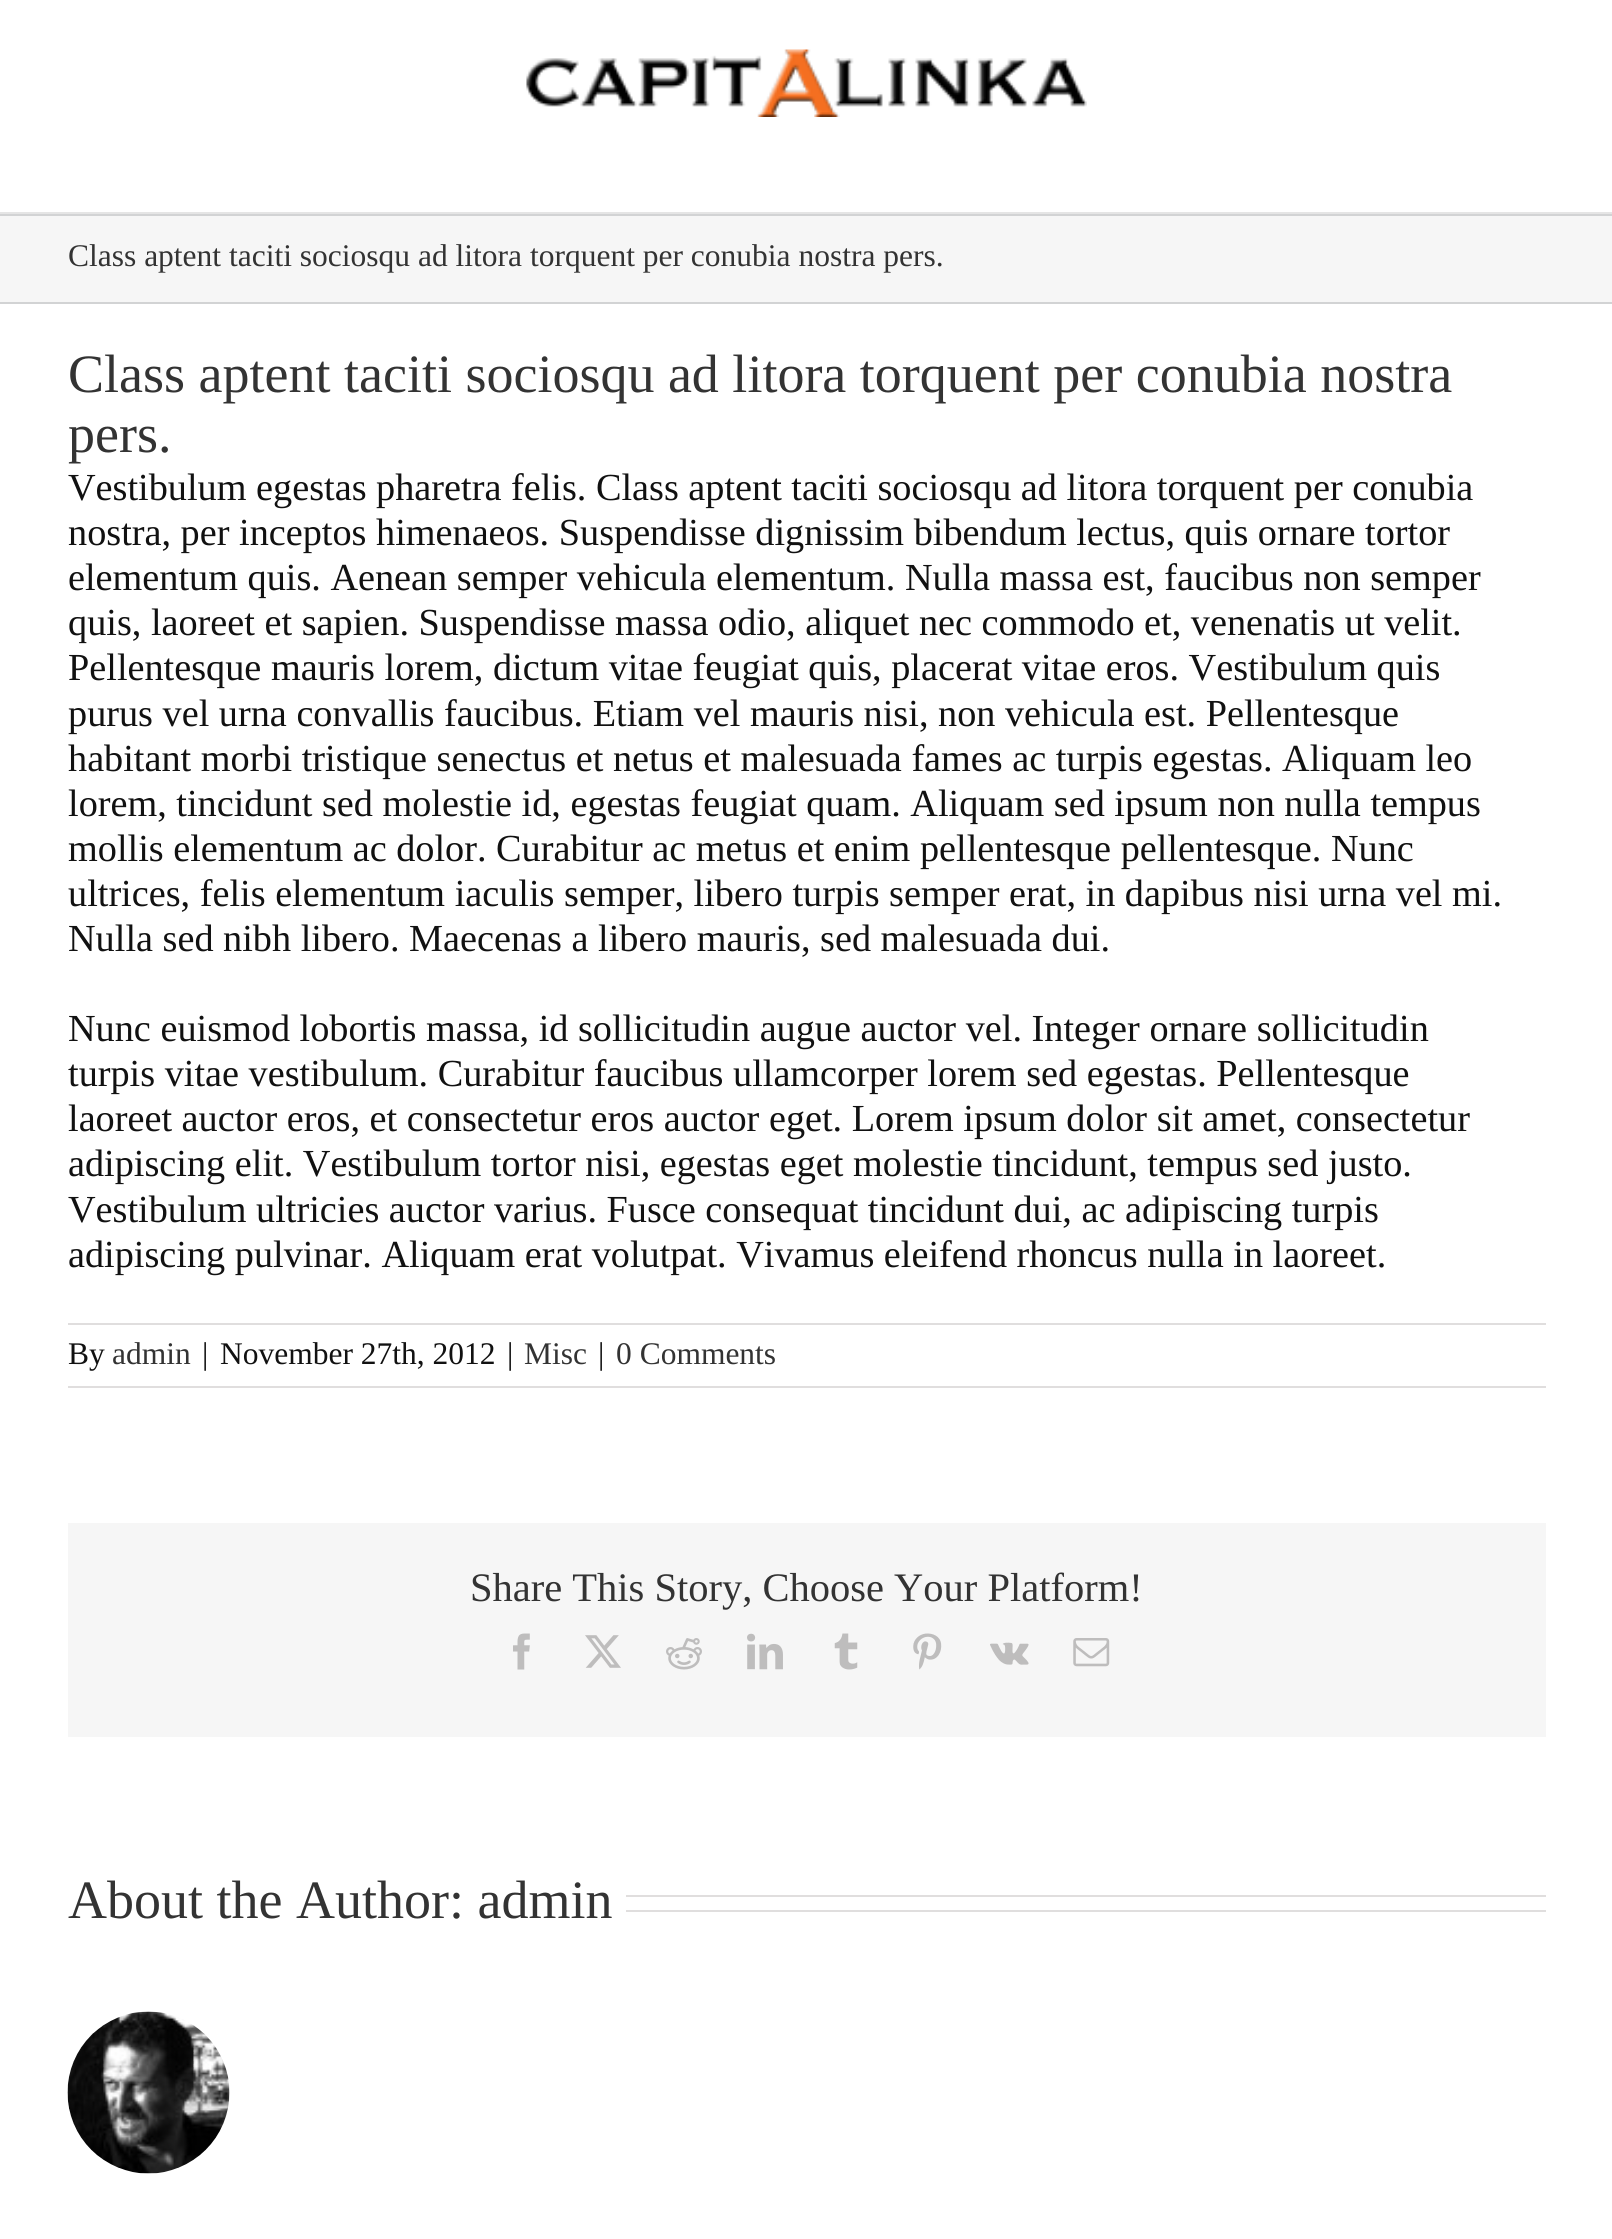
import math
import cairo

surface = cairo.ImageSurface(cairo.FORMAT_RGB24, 1612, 2239)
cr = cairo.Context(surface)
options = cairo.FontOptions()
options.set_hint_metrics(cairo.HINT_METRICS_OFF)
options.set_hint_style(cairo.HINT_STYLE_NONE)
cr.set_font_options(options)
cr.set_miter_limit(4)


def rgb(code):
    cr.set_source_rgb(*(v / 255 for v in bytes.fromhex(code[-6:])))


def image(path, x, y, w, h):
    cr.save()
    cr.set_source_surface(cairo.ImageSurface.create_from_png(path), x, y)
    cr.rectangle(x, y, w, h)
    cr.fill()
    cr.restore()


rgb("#ffffff")
cr.paint()
rgb("#e5e5e5")
cr.rectangle(0, 212, 1612, 2)
cr.fill()
image("img/1.png", 526, 49, 561, 68)
for x, y, w, h, color in [
    (0, 216, 1612, 86, "#f6f6f6"),
    (0, 214, 1612, 2, "#d2d3d4"),
    (0, 302, 1612, 2, "#d2d3d4"),
    (68, 1323, 1478, 2, "#e0dede"),
    (68, 1386, 1478, 2, "#e0dede"),
    (68, 1523, 1478, 214, "#f6f6f6"),
]:
    rgb(color)
    cr.rectangle(x, y, w, h)
    cr.fill()
image("img/2.png", 513, 1633, 17, 37)
image("img/3.png", 585, 1635, 36, 33)
image("img/4.png", 666, 1638, 36, 32)
image("img/5.png", 747, 1633, 36, 37)
image("img/6.png", 834, 1633, 24, 37)
image("img/7.png", 913, 1633, 29, 37)
image("img/8.png", 990, 1642, 39, 23)
image("img/9.png", 1073, 1638, 37, 29)
rgb("#e0dede")
cr.rectangle(626, 1895, 920, 2)
cr.fill()
cr.rectangle(626, 1910, 920, 2)
cr.fill()
image("img/10.png", 67, 2011, 163, 163)
cr.select_font_face("Liberation Serif")
cr.set_font_size(31.5)
rgb("#333333")
cr.move_to(68, 266)
cr.show_text("Class aptent taciti sociosqu ad litora torquent per conubia nostra pers.")
cr.set_font_size(54)
cr.move_to(68, 392)
cr.show_text("Class aptent taciti sociosqu ad litora torquent per conubia nostra")
cr.move_to(68, 452)
cr.show_text("pers.")
cr.set_font_size(38.25)
rgb("#111111")
for x, y, s in [
    (68, 500, "Vestibulum egestas pharetra felis. Class aptent taciti sociosqu ad litora torquent per conubia"),
    (68, 545, "nostra, per inceptos himenaeos. Suspendisse dignissim bibendum lectus, quis ornare tortor"),
    (68, 590, "elementum quis. Aenean semper vehicula elementum. Nulla massa est, faucibus non semper"),
    (68, 635, "quis, laoreet et sapien. Suspendisse massa odio, aliquet nec commodo et, venenatis ut velit."),
    (68, 680, "Pellentesque mauris lorem, dictum vitae feugiat quis, placerat vitae eros. Vestibulum quis"),
    (68, 726, "purus vel urna convallis faucibus. Etiam vel mauris nisi, non vehicula est. Pellentesque"),
    (68, 771, "habitant morbi tristique senectus et netus et malesuada fames ac turpis egestas. Aliquam leo"),
    (68, 816, "lorem, tincidunt sed molestie id, egestas feugiat quam. Aliquam sed ipsum non nulla tempus"),
    (68, 861, "mollis elementum ac dolor. Curabitur ac metus et enim pellentesque pellentesque. Nunc"),
    (68, 906, "ultrices, felis elementum iaculis semper, libero turpis semper erat, in dapibus nisi urna vel mi."),
    (68, 951, "Nulla sed nibh libero. Maecenas a libero mauris, sed malesuada dui."),
    (68, 1041, "Nunc euismod lobortis massa, id sollicitudin augue auctor vel. Integer ornare sollicitudin"),
    (68, 1086, "turpis vitae vestibulum. Curabitur faucibus ullamcorper lorem sed egestas. Pellentesque"),
    (68, 1131, "laoreet auctor eros, et consectetur eros auctor eget. Lorem ipsum dolor sit amet, consectetur"),
    (68, 1176, "adipiscing elit. Vestibulum tortor nisi, egestas eget molestie tincidunt, tempus sed justo."),
    (68, 1222, "Vestibulum ultricies auctor varius. Fusce consequat tincidunt dui, ac adipiscing turpis"),
    (68, 1267, "adipiscing pulvinar. Aliquam erat volutpat. Vivamus eleifend rhoncus nulla in laoreet."),
]:
    cr.move_to(x, y)
    cr.show_text(s)
cr.set_font_size(31.5)
cr.move_to(68, 1364)
cr.show_text("By")
rgb("#333333")
cr.move_to(112, 1364)
cr.show_text("admin")
rgb("#111111")
for x, y, s in [
    (202, 1364, "|"),
    (220, 1364, "November 27th, 2012"),
    (507, 1364, "|"),
]:
    cr.move_to(x, y)
    cr.show_text(s)
rgb("#333333")
cr.move_to(524, 1364)
cr.show_text("Misc")
rgb("#111111")
cr.move_to(598, 1364)
cr.show_text("|")
rgb("#333333")
cr.move_to(616, 1364)
cr.show_text("0 Comments")
cr.set_font_size(40.5)
cr.move_to(470, 1601)
cr.show_text("Share This Story, Choose Your Platform!")
cr.set_font_size(54)
cr.move_to(68, 1918)
cr.show_text("About the Author: admin")
surface.write_to_png("page.png")
